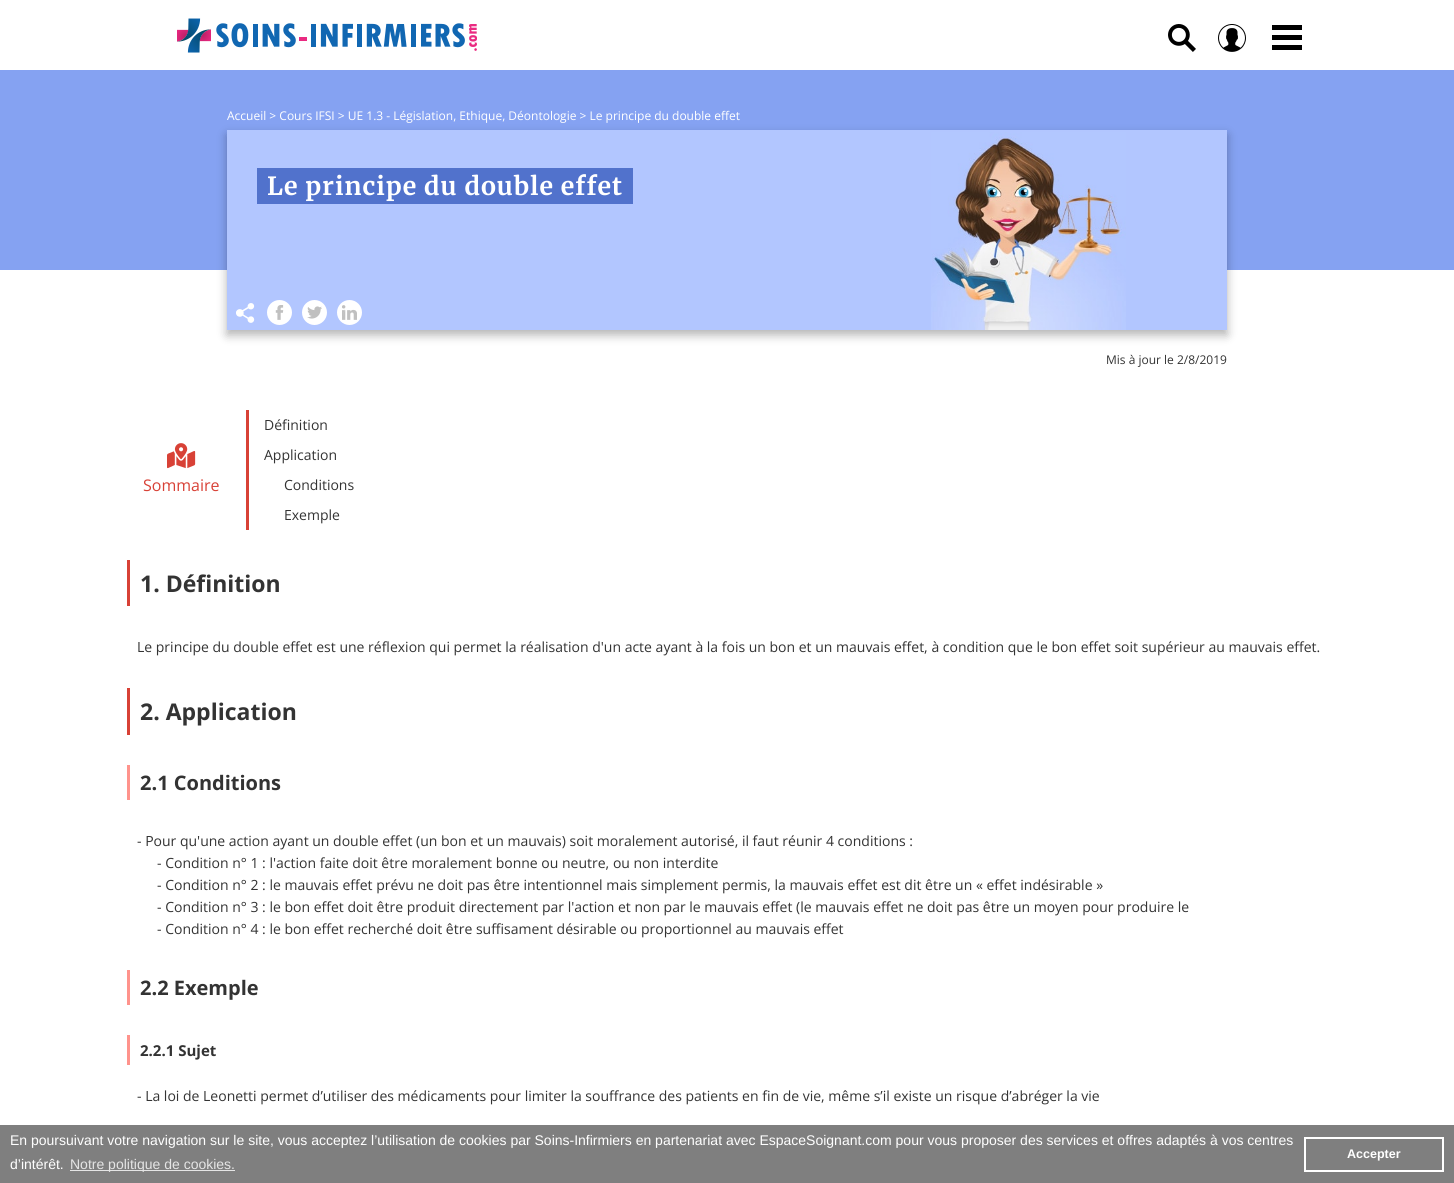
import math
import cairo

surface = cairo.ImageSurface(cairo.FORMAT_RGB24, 1454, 1183)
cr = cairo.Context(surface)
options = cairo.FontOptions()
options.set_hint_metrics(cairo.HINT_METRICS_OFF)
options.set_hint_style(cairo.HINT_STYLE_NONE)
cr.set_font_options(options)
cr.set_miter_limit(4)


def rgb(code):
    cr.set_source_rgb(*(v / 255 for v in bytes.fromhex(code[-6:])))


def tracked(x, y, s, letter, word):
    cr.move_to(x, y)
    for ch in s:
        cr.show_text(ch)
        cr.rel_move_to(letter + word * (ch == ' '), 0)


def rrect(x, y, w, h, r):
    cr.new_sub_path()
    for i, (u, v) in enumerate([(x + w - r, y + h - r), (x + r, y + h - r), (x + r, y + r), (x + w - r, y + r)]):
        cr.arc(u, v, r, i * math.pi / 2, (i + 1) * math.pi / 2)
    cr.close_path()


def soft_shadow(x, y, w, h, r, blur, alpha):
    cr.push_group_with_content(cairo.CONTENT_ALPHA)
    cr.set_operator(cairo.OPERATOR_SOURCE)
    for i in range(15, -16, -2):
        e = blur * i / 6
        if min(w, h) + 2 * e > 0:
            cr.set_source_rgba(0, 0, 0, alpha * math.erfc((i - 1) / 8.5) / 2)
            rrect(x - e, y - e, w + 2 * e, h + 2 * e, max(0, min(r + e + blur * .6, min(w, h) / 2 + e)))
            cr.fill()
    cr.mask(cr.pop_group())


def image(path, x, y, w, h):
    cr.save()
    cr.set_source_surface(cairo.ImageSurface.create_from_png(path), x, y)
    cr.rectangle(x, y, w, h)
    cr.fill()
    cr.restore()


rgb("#ffffff")
cr.paint()
image("img/1.png", 177, 18, 300, 35)
image("img/2.png", 1168, 24, 28, 28)
image("img/3.png", 1218, 24, 28, 28)
for x, y, w, h, color in [
    (1272, 35, 30, 5, "#000000"),
    (1272, 25, 30, 5, "#000000"),
    (1272, 45, 30, 5, "#000000"),
    (0, 70, 1454, 200, "#85a2f2"),
]:
    rgb(color)
    cr.rectangle(x, y, w, h)
    cr.fill()
rgb("#000000")
soft_shadow(227, 135, 1000, 200, 0, 5, 0.3)
for x, y, w, h, color in [
    (227, 130, 1000, 200, "#b2c6ff"),
    (257, 168, 10, 36, "#5172cc"),
    (267, 168, 366, 36, "#5172cc"),
]:
    rgb(color)
    cr.rectangle(x, y, w, h)
    cr.fill()
image("img/4.png", 236, 303, 19, 20)
rgb("#ffffff")
cr.arc(279.5, 312.5, 12.5, 0, 2 * math.pi)
cr.fill()
image("img/5.png", 275, 305, 9, 15)
cr.arc(314.5, 312.5, 12.5, 0, 2 * math.pi)
cr.fill()
image("img/6.png", 307, 306, 15, 13)
cr.arc(349.5, 312.5, 12.5, 0, 2 * math.pi)
cr.fill()
image("img/7.png", 342, 305, 15, 15)
image("img/8.png", 931, 132, 195, 198)
image("img/9.png", 167, 443, 29, 26)
for x, y, w, h, color in [
    (246, 410, 3, 120, "#d84136"),
    (127, 560, 3, 46, "#d84136"),
    (127, 688, 3, 47, "#d84136"),
    (127, 765, 3, 35, "#ff938c"),
    (127, 970, 3, 35, "#ff938c"),
    (127, 1035, 3, 30, "#ff938c"),
    (0, 1125, 1454, 58, "#7f7f7f"),
    (70, 1170, 165, 1, "#e5e5e5"),
]:
    rgb(color)
    cr.rectangle(x, y, w, h)
    cr.fill()
cr.rectangle(1305, 1138, 138, 33)
rgb("#ffffff")
cr.stroke()
cr.select_font_face("Open Sans")
cr.set_font_size(12)
cr.move_to(227, 120)
cr.show_text("Accueil > Cours IFSI > UE 1.3 - Législation, Ethique, Déontologie > Le principe du double effet")
cr.select_font_face("Merriweather", cairo.FONT_SLANT_NORMAL, cairo.FONT_WEIGHT_BOLD)
cr.set_font_size(25)
tracked(267, 195, "Le principe du double effet", 1, 0)
cr.select_font_face("Open Sans")
cr.set_font_size(12)
rgb("#333333")
cr.move_to(1106, 364)
cr.show_text("Mis à jour le 2/8/2019")
cr.set_font_size(16)
rgb("#d84136")
cr.move_to(143, 491)
cr.show_text("Sommaire")
cr.set_font_size(14)
rgb("#333333")
for x, y, s in [
    (264, 430, "Définition"),
    (264, 460, "Application"),
    (284, 490, "Conditions"),
    (284, 520, "Exemple"),
]:
    cr.move_to(x, y)
    cr.show_text(s)
cr.select_font_face("Open Sans", cairo.FONT_SLANT_NORMAL, cairo.FONT_WEIGHT_BOLD)
cr.set_font_size(23)
cr.move_to(140, 592)
cr.show_text("1. Définition")
cr.select_font_face("Open Sans")
cr.set_font_size(14)
cr.move_to(137, 652)
cr.show_text("Le principe du double effet est une réflexion qui permet la réalisation d'un acte ayant à la fois un bon et un mauvais effet, à condition que le bon effet soit supérieur au mauvais effet.")
cr.select_font_face("Open Sans", cairo.FONT_SLANT_NORMAL, cairo.FONT_WEIGHT_BOLD)
cr.set_font_size(23)
cr.move_to(140, 720)
cr.show_text("2. Application")
cr.set_font_size(20)
cr.move_to(140, 790)
cr.show_text("2.1 Conditions")
cr.select_font_face("Open Sans")
cr.set_font_size(14)
for x, y, s in [
    (137, 846, "- Pour qu'une action ayant un double effet (un bon et un mauvais) soit moralement autorisé, il faut réunir 4 conditions :"),
    (157, 868, "- Condition n° 1 : l'action faite doit être moralement bonne ou neutre, ou non interdite"),
    (157, 890, "- Condition n° 2 : le mauvais effet prévu ne doit pas être intentionnel mais simplement permis, la mauvais effet est dit être un « effet indésirable »"),
    (157, 912, "- Condition n° 3 : le bon effet doit être produit directement par l'action et non par le mauvais effet (le mauvais effet ne doit pas être un moyen pour produire le"),
    (157, 934, "- Condition n° 4 : le bon effet recherché doit être suffisament désirable ou proportionnel au mauvais effet"),
]:
    cr.move_to(x, y)
    cr.show_text(s)
cr.select_font_face("Open Sans", cairo.FONT_SLANT_NORMAL, cairo.FONT_WEIGHT_BOLD)
cr.set_font_size(20)
cr.move_to(140, 995)
cr.show_text("2.2 Exemple")
cr.set_font_size(15)
cr.move_to(140, 1056)
cr.show_text("2.2.1 Sujet")
cr.select_font_face("Open Sans")
cr.set_font_size(14)
cr.move_to(137, 1101)
cr.show_text("- La loi de Leonetti permet d’utiliser des médicaments pour limiter la souffrance des patients en fin de vie, même s’il existe un risque d’abréger la vie")
cr.select_font_face("Liberation Sans")
rgb("#ffffff")
cr.move_to(10, 1145)
cr.show_text("En poursuivant votre navigation sur le site, vous acceptez l’utilisation de cookies par Soins-Infirmiers en partenariat avec EspaceSoignant.com pour vous proposer des services et offres adaptés à vos centres")
cr.move_to(10, 1169)
cr.show_text("d’intérêt.")
rgb("#e5e5e5")
cr.move_to(70, 1169)
cr.show_text("Notre politique de cookies.")
cr.select_font_face("Liberation Sans", cairo.FONT_SLANT_NORMAL, cairo.FONT_WEIGHT_BOLD)
cr.set_font_size(12.5)
rgb("#ffffff")
cr.move_to(1347, 1158)
cr.show_text("Accepter")
surface.write_to_png("page.png")
